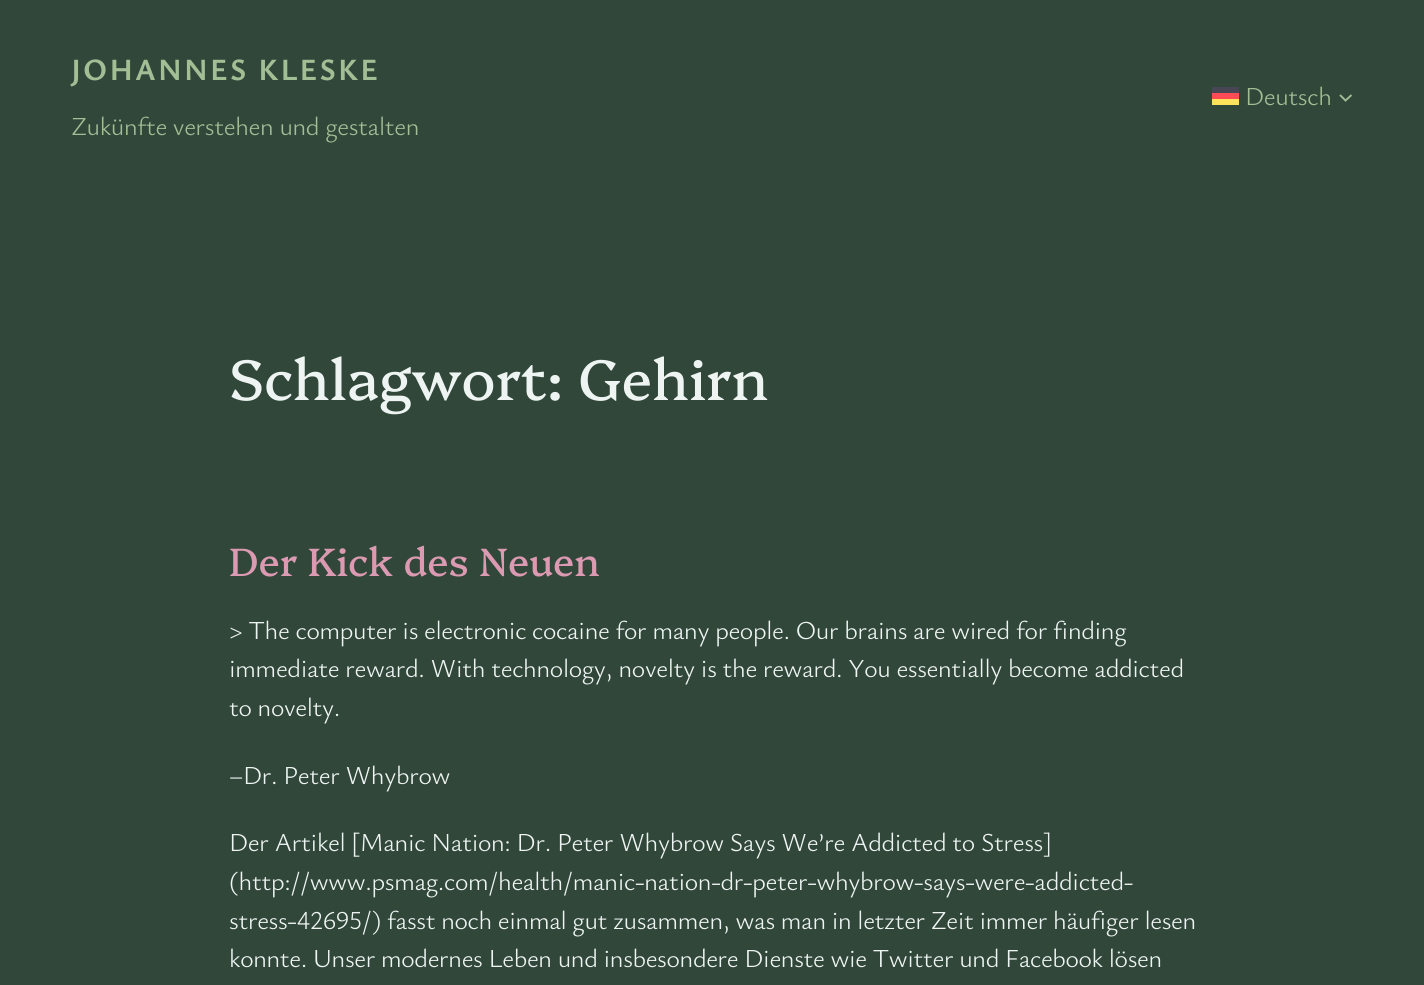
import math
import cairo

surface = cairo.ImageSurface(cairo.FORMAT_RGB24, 1424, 985)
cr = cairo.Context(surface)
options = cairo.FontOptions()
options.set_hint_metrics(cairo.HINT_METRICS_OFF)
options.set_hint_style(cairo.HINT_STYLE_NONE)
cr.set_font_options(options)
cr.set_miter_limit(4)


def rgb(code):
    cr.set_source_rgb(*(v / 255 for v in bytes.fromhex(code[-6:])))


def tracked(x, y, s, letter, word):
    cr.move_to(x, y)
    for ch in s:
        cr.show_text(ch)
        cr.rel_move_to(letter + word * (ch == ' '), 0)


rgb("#31473a")
cr.paint()
for x, y, w, h, color in [
    (1212, 93, 27, 6, "#ff4b55"),
    (1212, 99, 27, 6, "#ffe15a"),
    (1212, 87, 27, 6, "#464655"),
]:
    rgb(color)
    cr.rectangle(x, y, w, h)
    cr.fill()
cr.new_path()
cr.move_to(1340, 95)
cr.line_to(1345.5, 100.5)
cr.line_to(1351.5, 95)
rgb("#a1be95")
cr.set_line_width(1.9)
cr.stroke()
cr.select_font_face("Ysabeau Office", cairo.FONT_SLANT_NORMAL, cairo.FONT_WEIGHT_BOLD)
cr.set_font_size(30.75)
tracked(71, 80, "JOHANNES KLESKE", 2.2, 0)
cr.select_font_face("Ysabeau Office Light")
cr.set_font_size(25.85)
tracked(71, 135, "Zukünfte verstehen und gestalten", -0.33, 0)
tracked(1245, 105, "Deutsch", -0.33, 0)
cr.select_font_face("Platypi")
cr.set_font_size(56.9)
rgb("#edf4f2")
tracked(229, 400, "Schlagwort: Gehirn", -0.1, 0)
cr.set_font_size(39.5)
rgb("#db9ab1")
tracked(229, 576, "Der Kick des Neuen", -0.1, 0)
cr.select_font_face("Ysabeau Office Light")
cr.set_font_size(25.85)
rgb("#edf4f2")
for x, y, s in [
    (229, 639, "> The computer is electronic cocaine for many people. Our brains are wired for finding"),
    (229, 677, "immediate reward. With technology, novelty is the reward. You essentially become addicted"),
    (229, 716, "to novelty."),
    (229, 784, "–Dr. Peter Whybrow"),
    (229, 851, "Der Artikel [Manic Nation: Dr. Peter Whybrow Says We’re Addicted to Stress]"),
    (229, 890, "(http://www.psmag.com/health/manic-nation-dr-peter-whybrow-says-were-addicted-"),
]:
    tracked(x, y, s, -0.33, 0)
tracked(229, 929, "stress-42695/) fasst noch einmal gut zusammen, was man in letzter Zeit immer häufiger lesen", -0.33, -0.1)
tracked(229, 967, "konnte. Unser modernes Leben und insbesondere Dienste wie Twitter und Facebook lösen", -0.33, 0)
surface.write_to_png("page.png")
